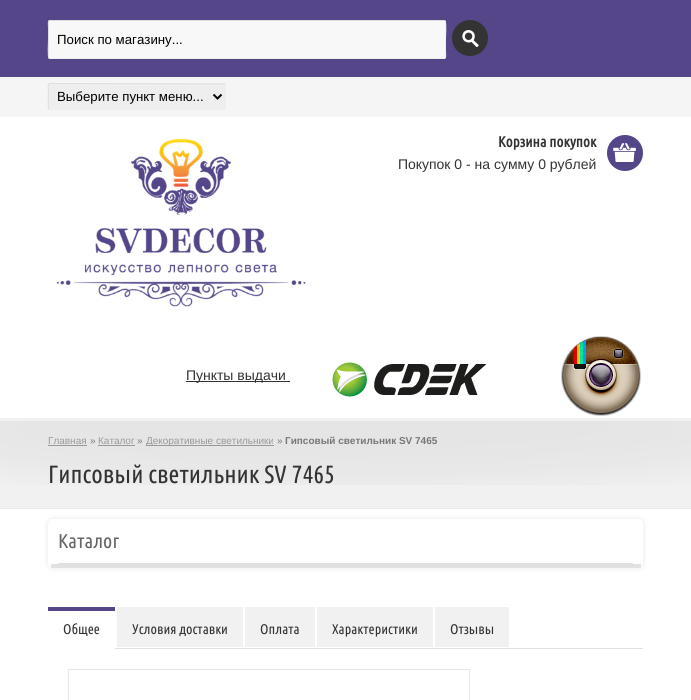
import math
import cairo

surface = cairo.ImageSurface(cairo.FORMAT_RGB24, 691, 700)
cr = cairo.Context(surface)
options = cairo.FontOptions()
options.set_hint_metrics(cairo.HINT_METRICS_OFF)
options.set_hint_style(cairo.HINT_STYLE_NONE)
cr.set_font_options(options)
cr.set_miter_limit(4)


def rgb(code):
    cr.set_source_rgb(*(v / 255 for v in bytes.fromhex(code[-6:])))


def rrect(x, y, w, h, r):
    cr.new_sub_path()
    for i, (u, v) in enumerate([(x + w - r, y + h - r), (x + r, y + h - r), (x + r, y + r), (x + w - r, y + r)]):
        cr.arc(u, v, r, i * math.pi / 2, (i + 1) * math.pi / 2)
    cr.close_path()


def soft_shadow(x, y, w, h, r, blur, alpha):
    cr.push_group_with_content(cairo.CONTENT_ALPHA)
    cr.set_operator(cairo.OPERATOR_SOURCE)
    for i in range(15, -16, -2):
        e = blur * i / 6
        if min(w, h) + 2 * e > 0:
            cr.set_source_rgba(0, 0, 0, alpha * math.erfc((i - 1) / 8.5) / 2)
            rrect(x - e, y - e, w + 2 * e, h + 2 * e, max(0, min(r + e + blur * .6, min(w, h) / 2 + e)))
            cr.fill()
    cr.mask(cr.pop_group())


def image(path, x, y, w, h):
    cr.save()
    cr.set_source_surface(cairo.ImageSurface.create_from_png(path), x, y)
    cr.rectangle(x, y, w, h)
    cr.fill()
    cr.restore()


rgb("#ffffff")
cr.paint()
rgb("#544689")
cr.rectangle(0, 0, 691, 77)
cr.fill()
rgb("#f8f8f8")
rrect(48, 20, 398, 39, 2)
cr.fill()
cr.new_path()
cr.move_to(445, 21)
cr.curve_to(446.5, 22.5, 445.5, 37, 445.5, 39.5)
cr.line_to(445.5, 51)
cr.curve_to(445.5, 54, 446.5, 58.5, 444, 58.5)
cr.line_to(50, 58.5)
cr.line_to(49, 58)
rgb("#eeeeee")
cr.set_line_width(1)
cr.stroke()
cr.new_path()
cr.move_to(49, 58)
cr.curve_to(47.5, 56.5, 48.5, 42, 48.5, 39.5)
cr.line_to(48.5, 28)
cr.curve_to(48.5, 25, 47.5, 20.5, 50, 20.5)
cr.line_to(444, 20.5)
cr.line_to(445, 21)
rgb("#dddddd")
cr.stroke()
rgb("#333333")
cr.arc(470, 38, 18, 0, 2 * math.pi)
cr.fill()
image("img/1.png", 462, 30, 17, 18)
rgb("#f5f5f5")
cr.rectangle(0, 77, 691, 40)
cr.fill()
rgb("#eeeeee")
rrect(48, 83, 178, 27, 2)
cr.fill()
cr.new_path()
cr.move_to(49, 109)
cr.curve_to(47.5, 108, 48.5, 95, 48.5, 92.5)
cr.curve_to(48.5, 92, 47, 83.5, 50, 83.5)
cr.line_to(225, 84)
rgb("#dddddd")
cr.stroke()
cr.new_path()
cr.move_to(213.5, 94.5)
cr.line_to(217.5, 98.5)
cr.line_to(221.5, 94.5)
rgb("#000000")
cr.set_line_width(2)
cr.stroke()
image("img/2.png", 56, 138, 250, 169)
rgb("#544689")
cr.arc(625, 153, 18, 0, 2 * math.pi)
cr.fill()
image("img/3.png", 613, 143, 23, 19)
rgb("#333333")
cr.rectangle(186, 381, 104, 1)
cr.fill()
image("img/4.png", 332, 362, 155, 35)
image("img/5.png", 561, 336, 80, 80)
rgb("#f1f1f1")
cr.rectangle(0, 418, 691, 90)
cr.fill()
image("img/6.png", 0, 421, 691, 64)
for x, y, w, h, color in [
    (0, 508, 691, 1, "#e9e9e9"),
    (48, 445, 39, 1, "#999999"),
    (98, 445, 37, 1, "#999999"),
    (146, 445, 128, 1, "#999999"),
]:
    rgb(color)
    cr.rectangle(x, y, w, h)
    cr.fill()
rgb("#000000")
soft_shadow(48, 519, 595, 49, 5, 3, 0.1)
rgb("#ffffff")
rrect(48, 519, 595, 49, 5)
cr.fill()
for x, y, w, h, color in [
    (51, 564, 590, 4, "#e1e1e1"),
    (58, 563, 575, 1, "#e1e1e1"),
    (115, 648, 528, 1, "#e1e1e1"),
    (48, 607, 67, 4, "#544689"),
    (117, 607, 126, 40, "#f1f1f1"),
    (245, 607, 70, 40, "#f1f1f1"),
    (317, 607, 116, 40, "#f1f1f1"),
    (435, 607, 74, 40, "#f1f1f1"),
]:
    rgb(color)
    cr.rectangle(x, y, w, h)
    cr.fill()
cr.rectangle(68.5, 669.5, 401, 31)
rgb("#e7e7e7")
cr.set_line_width(1)
cr.stroke()
cr.select_font_face("Liberation Sans")
cr.set_font_size(13.25)
rgb("#000000")
cr.move_to(57, 44)
cr.show_text("Поиск по магазину...")
cr.move_to(57, 101)
cr.show_text("Выберите пункт меню...")
cr.select_font_face("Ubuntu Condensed", cairo.FONT_SLANT_NORMAL, cairo.FONT_WEIGHT_BOLD)
cr.set_font_size(15)
rgb("#333333")
cr.move_to(498, 147)
cr.show_text("Корзина покупок")
cr.select_font_face("Liberation Sans")
cr.set_font_size(14)
cr.move_to(398, 169)
cr.show_text("Покупок 0 - на сумму 0 рублей")
cr.move_to(186, 380)
cr.show_text("Пункты выдачи")
cr.set_font_size(10)
rgb("#999999")
cr.move_to(48, 444)
cr.show_text("Главная")
rgb("#777777")
cr.move_to(90, 444)
cr.show_text("»")
rgb("#999999")
cr.move_to(98, 444)
cr.show_text("Каталог")
rgb("#777777")
cr.move_to(137, 444)
cr.show_text("»")
rgb("#999999")
cr.move_to(146, 444)
cr.show_text("Декоративные светильники")
rgb("#777777")
cr.move_to(277, 444)
cr.show_text("»")
cr.select_font_face("Liberation Sans", cairo.FONT_SLANT_NORMAL, cairo.FONT_WEIGHT_BOLD)
cr.move_to(285, 444)
cr.show_text("Гипсовый светильник SV 7465")
cr.select_font_face("Ubuntu Condensed")
cr.set_font_size(25)
rgb("#333333")
cr.move_to(48, 483)
cr.show_text("Гипсовый светильник SV 7465")
cr.set_font_size(20)
rgb("#666666")
cr.move_to(58, 548)
cr.show_text("Каталог")
cr.set_font_size(14)
rgb("#333333")
for x, y, s in [
    (63, 634, "Общее"),
    (132, 634, "Условия доставки"),
    (260, 634, "Оплата"),
    (332, 634, "Характеристики"),
    (450, 634, "Отзывы"),
]:
    cr.move_to(x, y)
    cr.show_text(s)
surface.write_to_png("page.png")
